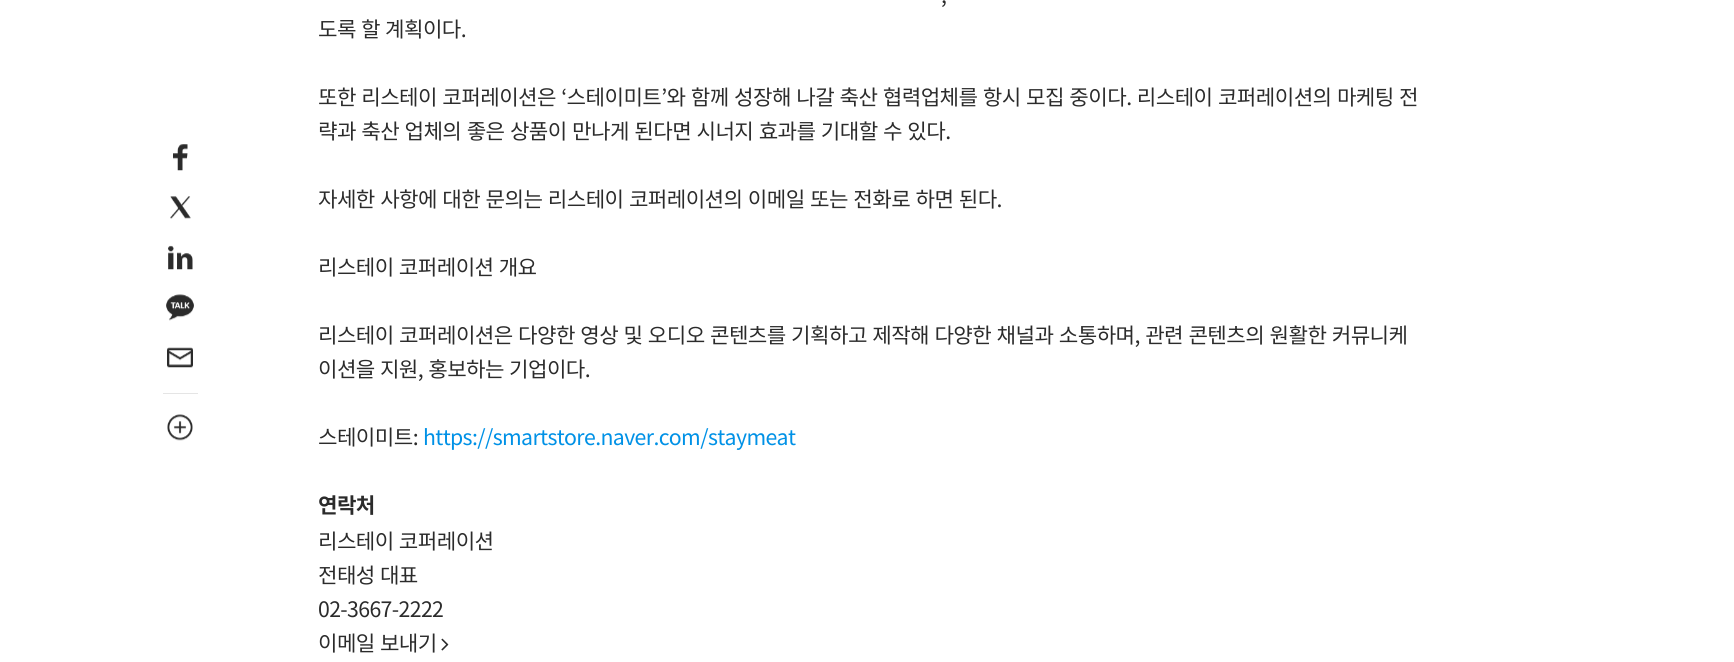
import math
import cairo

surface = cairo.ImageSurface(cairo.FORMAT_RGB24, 1734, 662)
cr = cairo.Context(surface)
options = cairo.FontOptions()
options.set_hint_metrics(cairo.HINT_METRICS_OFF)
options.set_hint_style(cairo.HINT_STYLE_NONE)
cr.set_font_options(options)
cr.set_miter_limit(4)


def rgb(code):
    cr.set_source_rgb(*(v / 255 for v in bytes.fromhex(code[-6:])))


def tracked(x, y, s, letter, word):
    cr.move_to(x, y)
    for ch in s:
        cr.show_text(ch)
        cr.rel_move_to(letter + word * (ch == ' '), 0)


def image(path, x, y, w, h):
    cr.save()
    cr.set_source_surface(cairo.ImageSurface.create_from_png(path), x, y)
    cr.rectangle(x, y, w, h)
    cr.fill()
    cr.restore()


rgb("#ffffff")
cr.paint()
image("img/1.png", 173, 144, 15, 27)
image("img/2.png", 170, 196, 21, 23)
image("img/3.png", 168, 245, 25, 25)
image("img/4.png", 166, 294, 28, 27)
image("img/5.png", 167, 347, 26, 21)
rgb("#e5e5e5")
cr.rectangle(163, 393, 35, 1)
cr.fill()
image("img/6.png", 167, 414, 26, 27)
image("img/7.png", 441, 638, 8, 13)
cr.select_font_face("Noto Sans KR")
cr.set_font_size(21.25)
rgb("#2b2b2b")
tracked(941, 3, ",", -0.62, 1.25)
tracked(318, 37, "도록 할 계획이다.", -0.62, 1)
for x, y, s in [
    (318, 105, "또한 리스테이 코퍼레이션은 ‘스테이미트’와 함께 성장해 나갈 축산 협력업체를 항시 모집 중이다. 리스테이 코퍼레이션의 마케팅 전"),
    (318, 139, "략과 축산 업체의 좋은 상품이 만나게 된다면 시너지 효과를 기대할 수 있다."),
    (318, 207, "자세한 사항에 대한 문의는 리스테이 코퍼레이션의 이메일 또는 전화로 하면 된다."),
]:
    tracked(x, y, s, -0.62, 1.25)
tracked(318, 275, "리스테이 코퍼레이션 개요", -0.62, 1)
tracked(318, 343, "리스테이 코퍼레이션은 다양한 영상 및 오디오 콘텐츠를 기획하고 제작해 다양한 채널과 소통하며, 관련 콘텐츠의 원활한 커뮤니케", -0.62, 1.25)
tracked(318, 377, "이션을 지원, 홍보하는 기업이다.", -0.62, 1)
tracked(318, 445, "스테이미트:", -0.62, 0)
rgb("#0091e6")
tracked(423, 445, "https://smartstore.naver.com/staymeat", -0.62, 0)
cr.select_font_face("Noto Sans KR", cairo.FONT_SLANT_NORMAL, cairo.FONT_WEIGHT_BOLD)
rgb("#2b2b2b")
tracked(318, 513, "연락처", -0.62, 0)
cr.select_font_face("Noto Sans KR")
tracked(318, 549, "리스테이 코퍼레이션", -0.62, 1)
tracked(318, 583, "전태성 대표", -0.62, 1)
tracked(318, 617, "02-3667-2222", -0.62, 0)
tracked(318, 651, "이메일 보내기", -0.62, 1)
surface.write_to_png("page.png")
